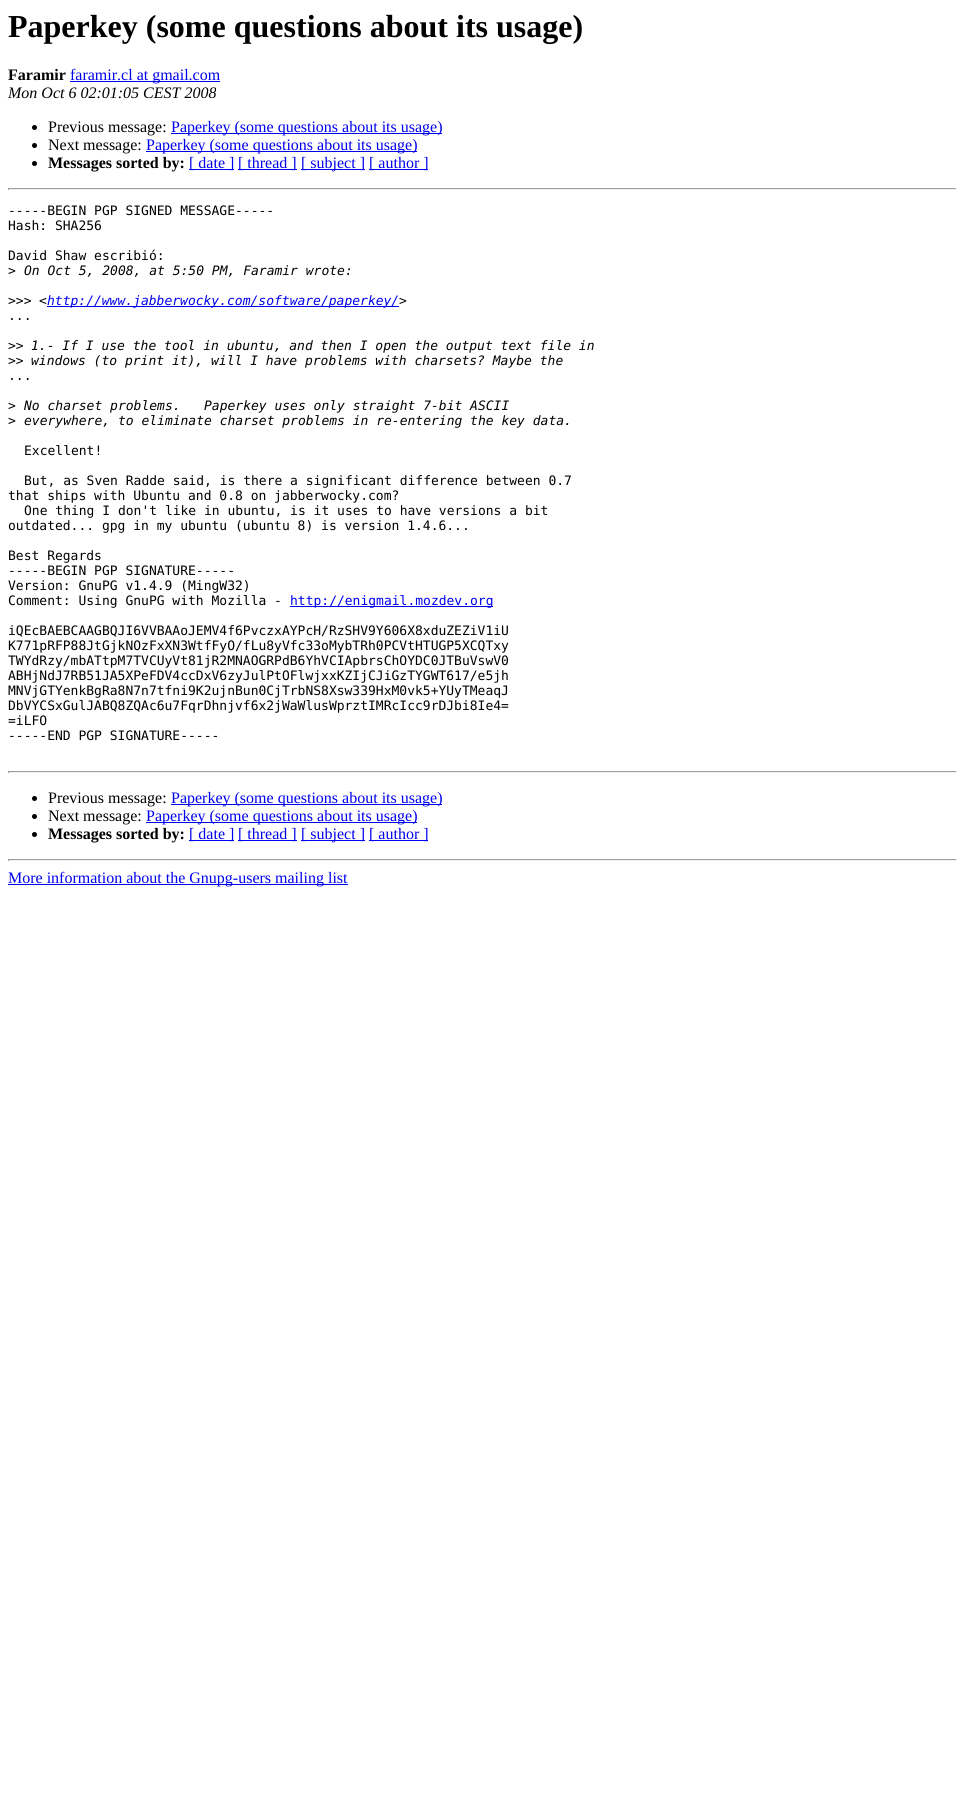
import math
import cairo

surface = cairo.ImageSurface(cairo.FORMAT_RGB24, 965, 1795)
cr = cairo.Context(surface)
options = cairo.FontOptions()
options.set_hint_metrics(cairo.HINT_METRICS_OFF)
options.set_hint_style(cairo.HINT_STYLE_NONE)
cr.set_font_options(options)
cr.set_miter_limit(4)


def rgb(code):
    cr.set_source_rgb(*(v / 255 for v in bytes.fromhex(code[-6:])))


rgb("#ffffff")
cr.paint()
rgb("#0000ee")
cr.rectangle(70, 81, 150, 1)
cr.fill()
rgb("#000000")
cr.arc(34.5, 127.5, 2.5, 0, 2 * math.pi)
cr.fill()
rgb("#0000ee")
cr.rectangle(171, 133, 271, 1)
cr.fill()
rgb("#000000")
cr.arc(34.5, 145.5, 2.5, 0, 2 * math.pi)
cr.fill()
rgb("#0000ee")
cr.rectangle(146, 151, 271, 1)
cr.fill()
rgb("#000000")
cr.arc(34.5, 163.5, 2.5, 0, 2 * math.pi)
cr.fill()
for x, y, w, h, color in [
    (189, 169, 45, 1, "#0000ee"),
    (238, 169, 59, 1, "#0000ee"),
    (301, 169, 64, 1, "#0000ee"),
    (369, 169, 59, 1, "#0000ee"),
    (8, 188, 949, 1, "#9f9f9f"),
    (956, 188, 1, 2, "#eeeeee"),
    (8, 189, 949, 1, "#eeeeee"),
    (8, 188, 1, 2, "#9f9f9f"),
    (47, 306, 352, 1, "#0000ee"),
    (290, 606, 203, 1, "#0000ee"),
    (8, 771, 949, 1, "#9f9f9f"),
    (956, 771, 1, 2, "#eeeeee"),
    (8, 772, 949, 1, "#eeeeee"),
    (8, 771, 1, 2, "#9f9f9f"),
]:
    rgb(color)
    cr.rectangle(x, y, w, h)
    cr.fill()
rgb("#000000")
cr.arc(34.5, 798.5, 2.5, 0, 2 * math.pi)
cr.fill()
rgb("#0000ee")
cr.rectangle(171, 804, 271, 1)
cr.fill()
rgb("#000000")
cr.arc(34.5, 816.5, 2.5, 0, 2 * math.pi)
cr.fill()
rgb("#0000ee")
cr.rectangle(146, 822, 271, 1)
cr.fill()
rgb("#000000")
cr.arc(34.5, 834.5, 2.5, 0, 2 * math.pi)
cr.fill()
for x, y, w, h, color in [
    (189, 840, 45, 1, "#0000ee"),
    (238, 840, 59, 1, "#0000ee"),
    (301, 840, 64, 1, "#0000ee"),
    (369, 840, 59, 1, "#0000ee"),
    (8, 859, 949, 1, "#9f9f9f"),
    (956, 859, 1, 2, "#eeeeee"),
    (8, 860, 949, 1, "#eeeeee"),
    (8, 859, 1, 2, "#9f9f9f"),
    (8, 884, 340, 1, "#0000ee"),
]:
    rgb(color)
    cr.rectangle(x, y, w, h)
    cr.fill()
cr.select_font_face("Liberation Serif", cairo.FONT_SLANT_NORMAL, cairo.FONT_WEIGHT_BOLD)
cr.set_font_size(32)
rgb("#000000")
cr.move_to(8, 37)
cr.show_text("Paperkey (some questions about its usage)")
cr.set_font_size(16)
cr.move_to(8, 80)
cr.show_text("Faramir")
cr.select_font_face("Liberation Serif")
rgb("#0000ee")
cr.move_to(70, 80)
cr.show_text("faramir.cl at gmail.com")
cr.select_font_face("Liberation Serif", cairo.FONT_SLANT_ITALIC)
rgb("#000000")
cr.move_to(8, 98)
cr.show_text("Mon Oct 6 02:01:05 CEST 2008")
cr.select_font_face("Liberation Serif")
cr.move_to(48, 132)
cr.show_text("Previous message:")
rgb("#0000ee")
cr.move_to(171, 132)
cr.show_text("Paperkey (some questions about its usage)")
rgb("#000000")
cr.move_to(48, 150)
cr.show_text("Next message:")
rgb("#0000ee")
cr.move_to(146, 150)
cr.show_text("Paperkey (some questions about its usage)")
cr.select_font_face("Liberation Serif", cairo.FONT_SLANT_NORMAL, cairo.FONT_WEIGHT_BOLD)
rgb("#000000")
cr.move_to(48, 168)
cr.show_text("Messages sorted by:")
cr.select_font_face("Liberation Serif")
rgb("#0000ee")
for x, y, s in [
    (189, 168, "[ date ]"),
    (238, 168, "[ thread ]"),
    (301, 168, "[ subject ]"),
    (369, 168, "[ author ]"),
]:
    cr.move_to(x, y)
    cr.show_text(s)
cr.select_font_face("DejaVu Sans Mono")
cr.set_font_size(13)
rgb("#000000")
for x, y, s in [
    (8, 215, "-----BEGIN PGP SIGNED MESSAGE-----"),
    (8, 230, "Hash: SHA256"),
    (8, 260, "David Shaw escribió:"),
    (8, 275, ">"),
]:
    cr.move_to(x, y)
    cr.show_text(s)
cr.select_font_face("DejaVu Sans Mono", cairo.FONT_SLANT_ITALIC)
cr.move_to(24, 275)
cr.show_text("On Oct 5, 2008, at 5:50 PM, Faramir wrote:")
cr.select_font_face("DejaVu Sans Mono")
cr.move_to(8, 305)
cr.show_text(">>>")
cr.select_font_face("DejaVu Sans Mono", cairo.FONT_SLANT_ITALIC)
cr.move_to(39, 305)
cr.show_text("<")
rgb("#0000ee")
cr.move_to(47, 305)
cr.show_text("http://www.jabberwocky.com/software/paperkey/")
rgb("#000000")
cr.move_to(399, 305)
cr.show_text(">")
cr.select_font_face("DejaVu Sans Mono")
cr.move_to(8, 320)
cr.show_text("...")
cr.move_to(8, 350)
cr.show_text(">>")
cr.select_font_face("DejaVu Sans Mono", cairo.FONT_SLANT_ITALIC)
cr.move_to(31, 350)
cr.show_text("1.- If I use the tool in ubuntu, and then I open the output text file in")
cr.select_font_face("DejaVu Sans Mono")
cr.move_to(8, 365)
cr.show_text(">>")
cr.select_font_face("DejaVu Sans Mono", cairo.FONT_SLANT_ITALIC)
cr.move_to(31, 365)
cr.show_text("windows (to print it), will I have problems with charsets? Maybe the")
cr.select_font_face("DejaVu Sans Mono")
cr.move_to(8, 380)
cr.show_text("...")
cr.move_to(8, 410)
cr.show_text(">")
cr.select_font_face("DejaVu Sans Mono", cairo.FONT_SLANT_ITALIC)
cr.move_to(24, 410)
cr.show_text("No charset problems.   Paperkey uses only straight 7-bit ASCII")
cr.select_font_face("DejaVu Sans Mono")
cr.move_to(8, 425)
cr.show_text(">")
cr.select_font_face("DejaVu Sans Mono", cairo.FONT_SLANT_ITALIC)
cr.move_to(24, 425)
cr.show_text("everywhere, to eliminate charset problems in re-entering the key data.")
cr.select_font_face("DejaVu Sans Mono")
for x, y, s in [
    (24, 455, "Excellent!"),
    (24, 485, "But, as Sven Radde said, is there a significant difference between 0.7"),
    (8, 500, "that ships with Ubuntu and 0.8 on jabberwocky.com?"),
    (24, 515, "One thing I don't like in ubuntu, is it uses to have versions a bit"),
    (8, 530, "outdated... gpg in my ubuntu (ubuntu 8) is version 1.4.6..."),
    (8, 560, "Best Regards"),
    (8, 575, "-----BEGIN PGP SIGNATURE-----"),
    (8, 590, "Version: GnuPG v1.4.9 (MingW32)"),
    (8, 605, "Comment: Using GnuPG with Mozilla -"),
]:
    cr.move_to(x, y)
    cr.show_text(s)
rgb("#0000ee")
cr.move_to(290, 605)
cr.show_text("http://enigmail.mozdev.org")
rgb("#000000")
for x, y, s in [
    (8, 635, "iQEcBAEBCAAGBQJI6VVBAAoJEMV4f6PvczxAYPcH/RzSHV9Y606X8xduZEZiV1iU"),
    (8, 650, "K771pRFP88JtGjkNOzFxXN3WtfFyO/fLu8yVfc33oMybTRh0PCVtHTUGP5XCQTxy"),
    (8, 665, "TWYdRzy/mbATtpM7TVCUyVt81jR2MNAOGRPdB6YhVCIApbrsChOYDC0JTBuVswV0"),
    (8, 680, "ABHjNdJ7RB51JA5XPeFDV4ccDxV6zyJulPtOFlwjxxKZIjCJiGzTYGWT617/e5jh"),
    (8, 695, "MNVjGTYenkBgRa8N7n7tfni9K2ujnBun0CjTrbNS8Xsw339HxM0vk5+YUyTMeaqJ"),
    (8, 710, "DbVYCSxGulJABQ8ZQAc6u7FqrDhnjvf6x2jWaWlusWprztIMRcIcc9rDJbi8Ie4="),
    (8, 725, "=iLFO"),
    (8, 740, "-----END PGP SIGNATURE-----"),
]:
    cr.move_to(x, y)
    cr.show_text(s)
cr.select_font_face("Liberation Serif")
cr.set_font_size(16)
cr.move_to(48, 803)
cr.show_text("Previous message:")
rgb("#0000ee")
cr.move_to(171, 803)
cr.show_text("Paperkey (some questions about its usage)")
rgb("#000000")
cr.move_to(48, 821)
cr.show_text("Next message:")
rgb("#0000ee")
cr.move_to(146, 821)
cr.show_text("Paperkey (some questions about its usage)")
cr.select_font_face("Liberation Serif", cairo.FONT_SLANT_NORMAL, cairo.FONT_WEIGHT_BOLD)
rgb("#000000")
cr.move_to(48, 839)
cr.show_text("Messages sorted by:")
cr.select_font_face("Liberation Serif")
rgb("#0000ee")
for x, y, s in [
    (189, 839, "[ date ]"),
    (238, 839, "[ thread ]"),
    (301, 839, "[ subject ]"),
    (369, 839, "[ author ]"),
    (8, 883, "More information about the Gnupg-users mailing list"),
]:
    cr.move_to(x, y)
    cr.show_text(s)
surface.write_to_png("page.png")
